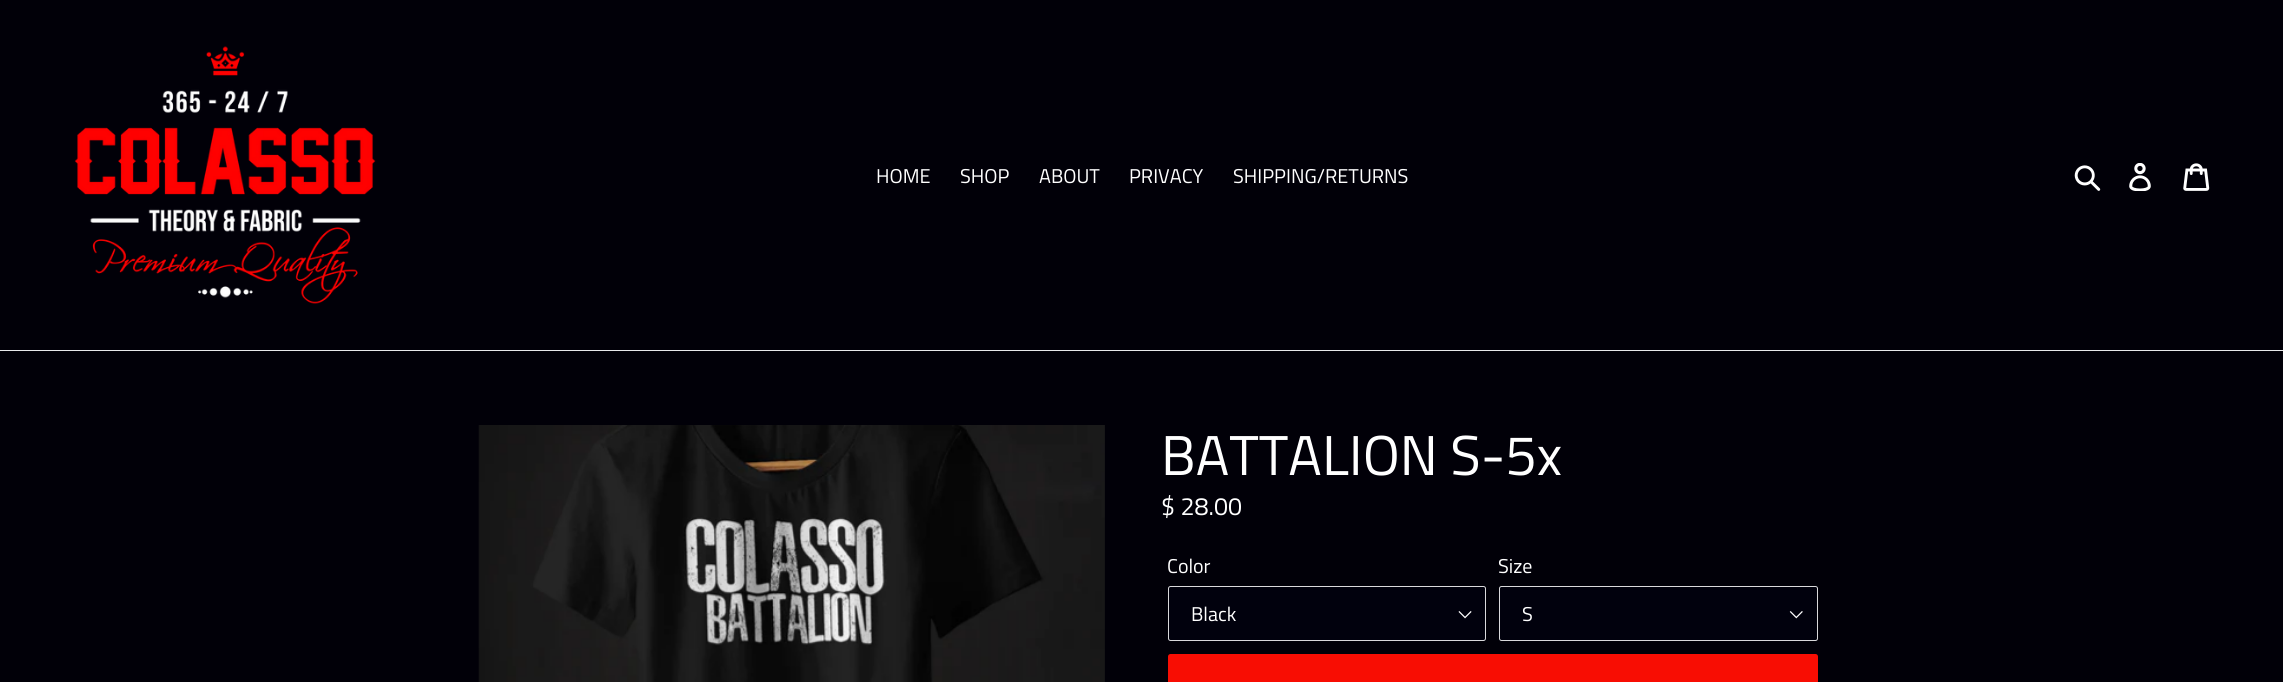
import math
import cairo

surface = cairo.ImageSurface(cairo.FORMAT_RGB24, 2283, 682)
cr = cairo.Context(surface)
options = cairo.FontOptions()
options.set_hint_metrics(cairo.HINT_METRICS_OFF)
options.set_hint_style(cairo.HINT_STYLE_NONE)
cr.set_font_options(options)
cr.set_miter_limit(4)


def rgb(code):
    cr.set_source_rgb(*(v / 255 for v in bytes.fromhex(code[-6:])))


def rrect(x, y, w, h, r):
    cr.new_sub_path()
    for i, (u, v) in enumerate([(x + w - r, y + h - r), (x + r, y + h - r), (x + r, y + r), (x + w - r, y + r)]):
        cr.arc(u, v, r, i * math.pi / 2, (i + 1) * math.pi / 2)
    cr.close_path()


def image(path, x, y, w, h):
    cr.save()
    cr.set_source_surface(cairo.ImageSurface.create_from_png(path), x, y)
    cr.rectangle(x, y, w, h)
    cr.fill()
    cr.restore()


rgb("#010008")
cr.paint()
rgb("#e8e9eb")
cr.rectangle(0, 350, 2283, 1)
cr.fill()
image("img/1.png", 74, 46, 302, 258)
image("img/2.png", 2074, 165, 27, 26)
image("img/3.png", 2129, 163, 22, 28)
image("img/4.png", 2183, 163, 27, 28)
image("img/5.png", 478, 425, 627, 257)
rgb("#01010d")
rrect(1168, 586, 318, 55, 2.5)
cr.fill()
image("img/6.png", 1458, 611, 14, 8)
rrect(1168.5, 586.5, 317, 54, 2)
rgb("#d9d9db")
cr.set_line_width(1)
cr.stroke()
rgb("#01010d")
rrect(1499, 586, 319, 55, 2.5)
cr.fill()
image("img/7.png", 1789, 611, 14, 8)
rrect(1499.5, 586.5, 318, 54, 2)
rgb("#d9d9db")
cr.stroke()
rgb("#f80d03")
rrect(1168, 654, 650, 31, 2.5)
cr.fill()
cr.select_font_face("Titillium Web")
cr.set_font_size(20)
rgb("#ffffff")
for x, y, s in [
    (876, 183, "HOME"),
    (960, 183, "SHOP"),
    (1039, 183, "ABOUT"),
    (1129, 183, "PRIVACY"),
    (1233, 183, "SHIPPING/RETURNS"),
]:
    cr.move_to(x, y)
    cr.show_text(s)
cr.set_font_size(56.25)
cr.move_to(1161, 475)
cr.show_text("BATTALION S-5x")
cr.set_font_size(25)
cr.move_to(1161, 515)
cr.show_text("$ 28.00")
cr.set_font_size(20)
for x, y, s in [
    (1167, 573, "Color"),
    (1191, 621, "Black"),
    (1498, 573, "Size"),
    (1522, 621, "S"),
]:
    cr.move_to(x, y)
    cr.show_text(s)
surface.write_to_png("page.png")
